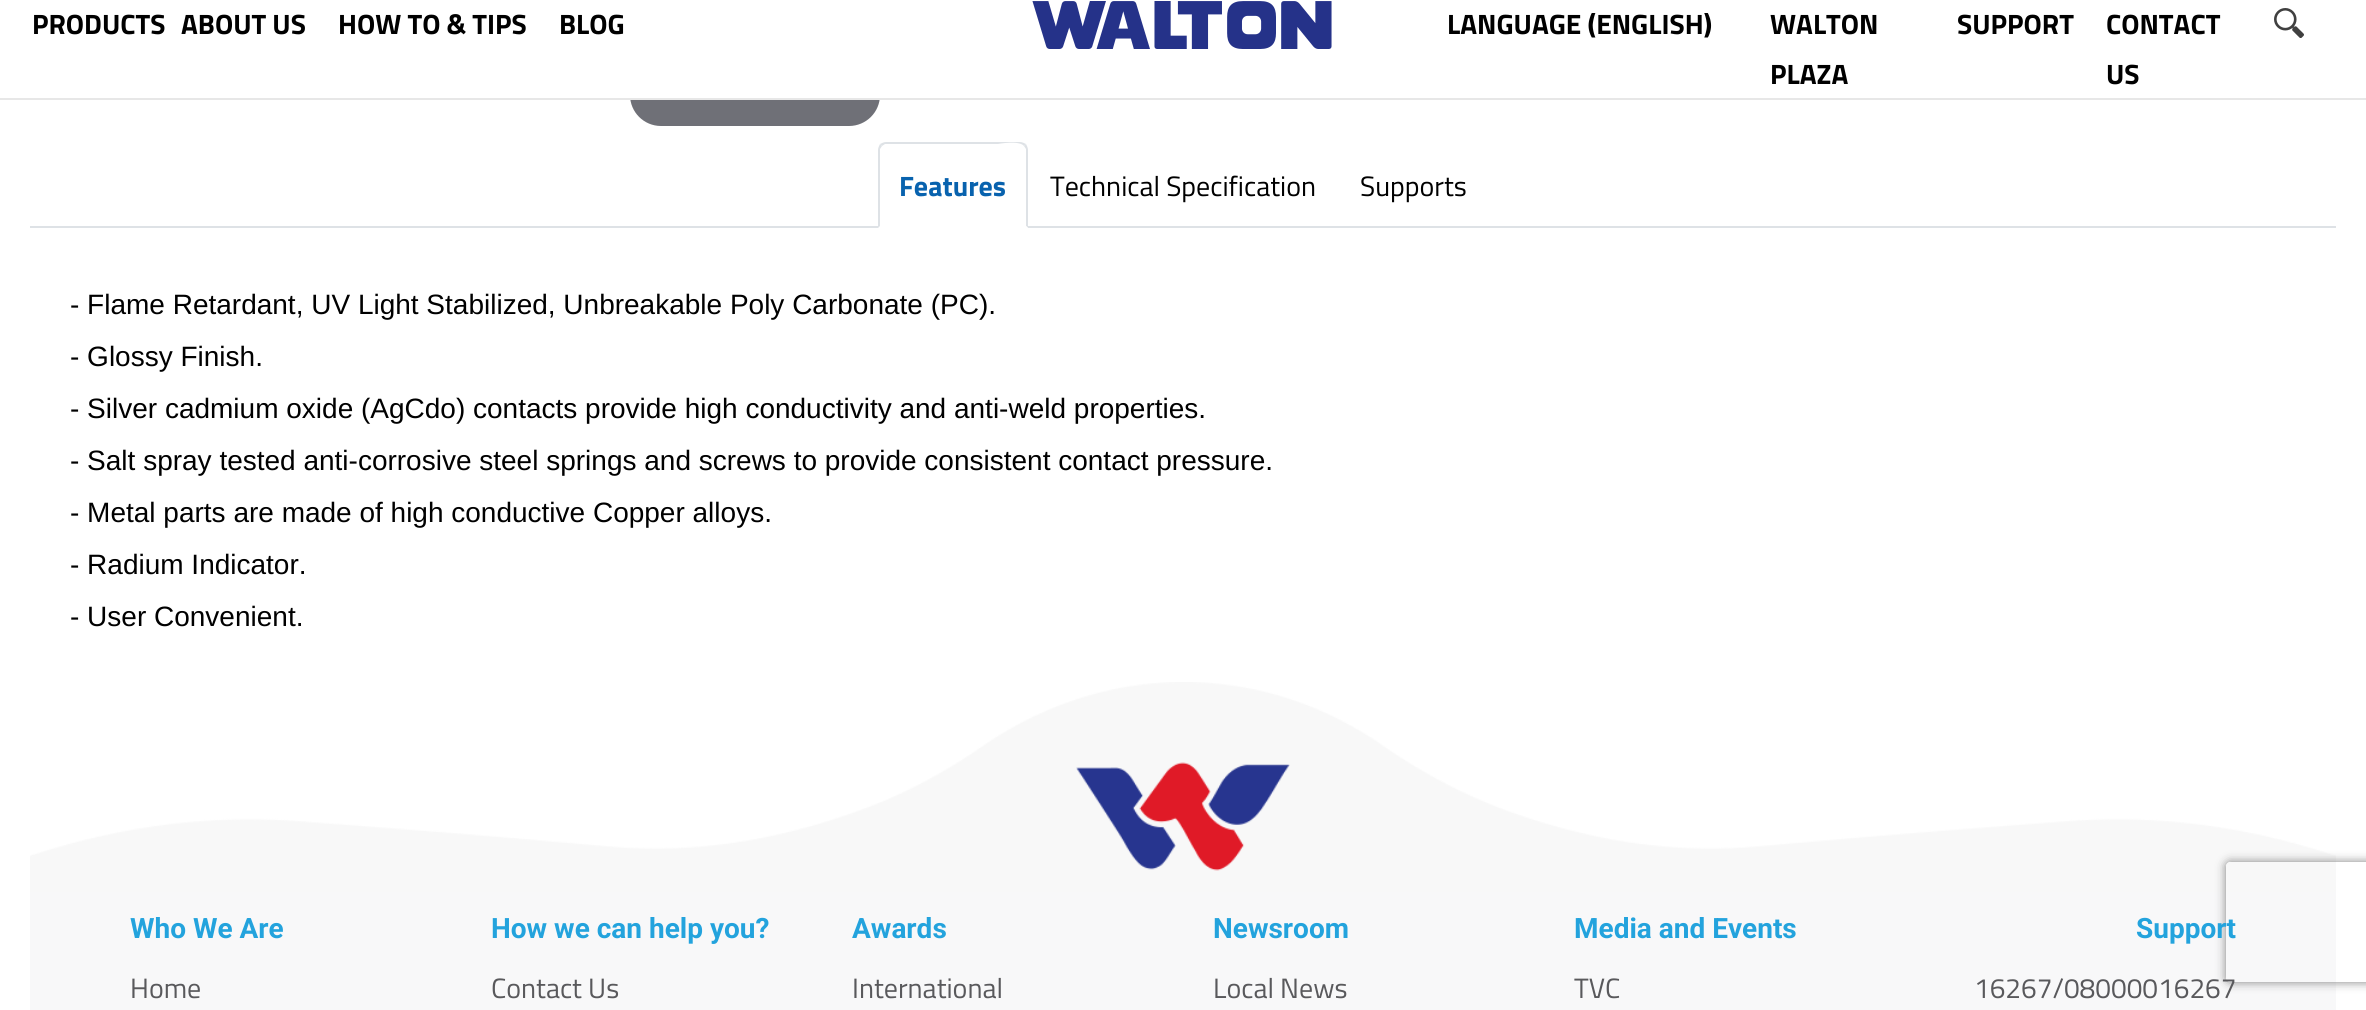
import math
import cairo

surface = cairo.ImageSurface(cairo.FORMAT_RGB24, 2366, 1010)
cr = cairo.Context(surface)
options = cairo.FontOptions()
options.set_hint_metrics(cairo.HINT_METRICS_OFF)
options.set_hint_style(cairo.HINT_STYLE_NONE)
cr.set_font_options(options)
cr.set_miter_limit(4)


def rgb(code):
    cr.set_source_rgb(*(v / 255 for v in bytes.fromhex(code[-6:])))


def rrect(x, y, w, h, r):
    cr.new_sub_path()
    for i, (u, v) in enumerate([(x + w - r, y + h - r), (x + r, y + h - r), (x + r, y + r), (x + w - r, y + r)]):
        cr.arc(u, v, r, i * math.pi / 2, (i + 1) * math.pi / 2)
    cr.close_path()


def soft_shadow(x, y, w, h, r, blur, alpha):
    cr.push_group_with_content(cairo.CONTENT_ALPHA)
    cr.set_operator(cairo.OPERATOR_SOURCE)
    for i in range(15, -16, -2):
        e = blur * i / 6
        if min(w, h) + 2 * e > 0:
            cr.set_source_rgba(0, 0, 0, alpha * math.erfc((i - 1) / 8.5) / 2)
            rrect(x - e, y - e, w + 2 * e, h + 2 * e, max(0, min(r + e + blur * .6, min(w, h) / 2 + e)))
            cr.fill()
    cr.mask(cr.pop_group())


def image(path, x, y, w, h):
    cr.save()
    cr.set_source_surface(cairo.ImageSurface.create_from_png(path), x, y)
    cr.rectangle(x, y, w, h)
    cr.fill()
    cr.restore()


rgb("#ffffff")
cr.paint()
rgb("#6f7077")
rrect(630, 64, 250, 62, 31)
cr.fill()
rgb("#ffffff")
cr.rectangle(630, 64, 250, 34)
cr.fill()
rgb("#e7e7e7")
cr.rectangle(0, 98, 2366, 2)
cr.fill()
image("img/1.png", 1032, 1, 300, 48)
image("img/2.png", 2274, 8, 30, 30)
rgb("#dee2e6")
cr.rectangle(30, 226, 2306, 2)
cr.fill()
rgb("#ffffff")
cr.new_path()
cr.move_to(886, 142)
cr.line_to(1020, 142)
cr.curve_to(1024.5, 142, 1028, 145.5, 1028, 150)
cr.line_to(1028, 228)
cr.line_to(878, 228)
cr.line_to(878, 150)
cr.curve_to(878, 145.5, 881.5, 142, 886, 142)
cr.close_path()
cr.fill()
rgb("#dee2e6")
cr.new_path()
cr.move_to(886, 142)
cr.curve_to(884, 142, 882, 143, 880, 144)
cr.line_to(882, 146)
cr.line_to(885, 144)
cr.line_to(998, 144)
cr.curve_to(998, 144, 1019, 140, 1024, 146)
cr.line_to(1026, 144)
cr.curve_to(1024, 143, 1022, 142, 1020, 142)
cr.close_path()
cr.fill()
cr.new_path()
cr.move_to(1028, 228)
cr.line_to(1028, 150)
cr.curve_to(1028, 148, 1027, 146, 1026, 144)
cr.line_to(1024, 146)
cr.line_to(1026, 149)
cr.line_to(1026, 226)
cr.close_path()
cr.fill()
rgb("#ffffff")
cr.new_path()
cr.move_to(1028, 228)
cr.line_to(1026, 226)
cr.line_to(880, 226)
cr.line_to(878, 228)
cr.close_path()
cr.fill()
rgb("#dee2e6")
cr.new_path()
cr.move_to(878, 228)
cr.line_to(880, 226)
cr.line_to(880, 149)
cr.line_to(882, 146)
cr.line_to(880, 144)
cr.curve_to(879, 146, 878, 148, 878, 150)
cr.close_path()
cr.fill()
image("img/3.png", 30, 682, 2306, 210)
rgb("#f8f8f9")
cr.rectangle(30, 892, 2306, 118)
cr.fill()
cr.save()
cr.set_fill_rule(cairo.FILL_RULE_EVEN_ODD)
cr.new_path()
cr.move_to(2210, 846)
cr.line_to(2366, 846)
cr.line_to(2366, 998)
cr.line_to(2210, 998)
cr.close_path()
cr.move_to(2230, 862)
cr.line_to(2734, 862)
cr.curve_to(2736, 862, 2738, 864, 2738, 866)
cr.line_to(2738, 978)
cr.curve_to(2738, 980, 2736, 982, 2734, 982)
cr.line_to(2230, 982)
cr.curve_to(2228, 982, 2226, 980, 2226, 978)
cr.line_to(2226, 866)
cr.curve_to(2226, 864, 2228, 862, 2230, 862)
cr.close_path()
cr.clip()
rgb("#808080")
soft_shadow(2226, 862, 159, 120, 4, 5, 1)
cr.restore()
cr.select_font_face("Titillium Web", cairo.FONT_SLANT_NORMAL, cairo.FONT_WEIGHT_BOLD)
cr.set_font_size(28)
rgb("#000000")
for x, y, s in [
    (32, 34, "PRODUCTS"),
    (181, 34, "ABOUT US"),
    (338, 34, "HOW TO & TIPS"),
    (559, 34, "BLOG"),
    (1447, 34, "LANGUAGE (ENGLISH)"),
    (1770, 34, "WALTON"),
    (1770, 84, "PLAZA"),
    (1957, 34, "SUPPORT"),
    (2106, 34, "CONTACT"),
    (2106, 84, "US"),
]:
    cr.move_to(x, y)
    cr.show_text(s)
rgb("#0862ae")
cr.move_to(899, 196)
cr.show_text("Features")
cr.select_font_face("Titillium Web")
rgb("#000000")
cr.move_to(1050, 196)
cr.show_text("Technical Specification")
cr.move_to(1360, 196)
cr.show_text("Supports")
cr.select_font_face("Liberation Sans")
for x, y, s in [
    (70, 314, "- Flame Retardant, UV Light Stabilized, Unbreakable Poly Carbonate (PC)."),
    (70, 366, "- Glossy Finish."),
    (70, 418, "- Silver cadmium oxide (AgCdo) contacts provide high conductivity and anti-weld properties."),
    (70, 470, "- Salt spray tested anti-corrosive steel springs and screws to provide consistent contact pressure."),
    (70, 522, "- Metal parts are made of high conductive Copper alloys."),
    (70, 574, "- Radium Indicator."),
    (70, 626, "- User Convenient."),
]:
    cr.move_to(x, y)
    cr.show_text(s)
cr.select_font_face("Roboto", cairo.FONT_SLANT_NORMAL, cairo.FONT_WEIGHT_BOLD)
rgb("#23a3dd")
cr.move_to(130, 938)
cr.show_text("Who We Are")
cr.select_font_face("Titillium Web")
rgb("#59595c")
cr.move_to(130, 998)
cr.show_text("Home")
cr.select_font_face("Roboto", cairo.FONT_SLANT_NORMAL, cairo.FONT_WEIGHT_BOLD)
rgb("#23a3dd")
cr.move_to(491, 938)
cr.show_text("How we can help you?")
cr.select_font_face("Titillium Web")
rgb("#59595c")
cr.move_to(491, 998)
cr.show_text("Contact Us")
cr.select_font_face("Roboto", cairo.FONT_SLANT_NORMAL, cairo.FONT_WEIGHT_BOLD)
rgb("#23a3dd")
cr.move_to(852, 938)
cr.show_text("Awards")
cr.select_font_face("Titillium Web")
rgb("#59595c")
cr.move_to(852, 998)
cr.show_text("International")
cr.select_font_face("Roboto", cairo.FONT_SLANT_NORMAL, cairo.FONT_WEIGHT_BOLD)
rgb("#23a3dd")
cr.move_to(1213, 938)
cr.show_text("Newsroom")
cr.select_font_face("Titillium Web")
rgb("#59595c")
cr.move_to(1213, 998)
cr.show_text("Local News")
cr.select_font_face("Roboto", cairo.FONT_SLANT_NORMAL, cairo.FONT_WEIGHT_BOLD)
rgb("#23a3dd")
cr.move_to(1574, 938)
cr.show_text("Media and Events")
cr.select_font_face("Titillium Web")
rgb("#59595c")
cr.move_to(1574, 998)
cr.show_text("TVC")
cr.select_font_face("Roboto", cairo.FONT_SLANT_NORMAL, cairo.FONT_WEIGHT_BOLD)
rgb("#23a3dd")
cr.move_to(2136, 938)
cr.show_text("Support")
cr.select_font_face("Titillium Web")
rgb("#59595c")
cr.move_to(1974, 998)
cr.show_text("16267/08000016267")
surface.write_to_png("page.png")
